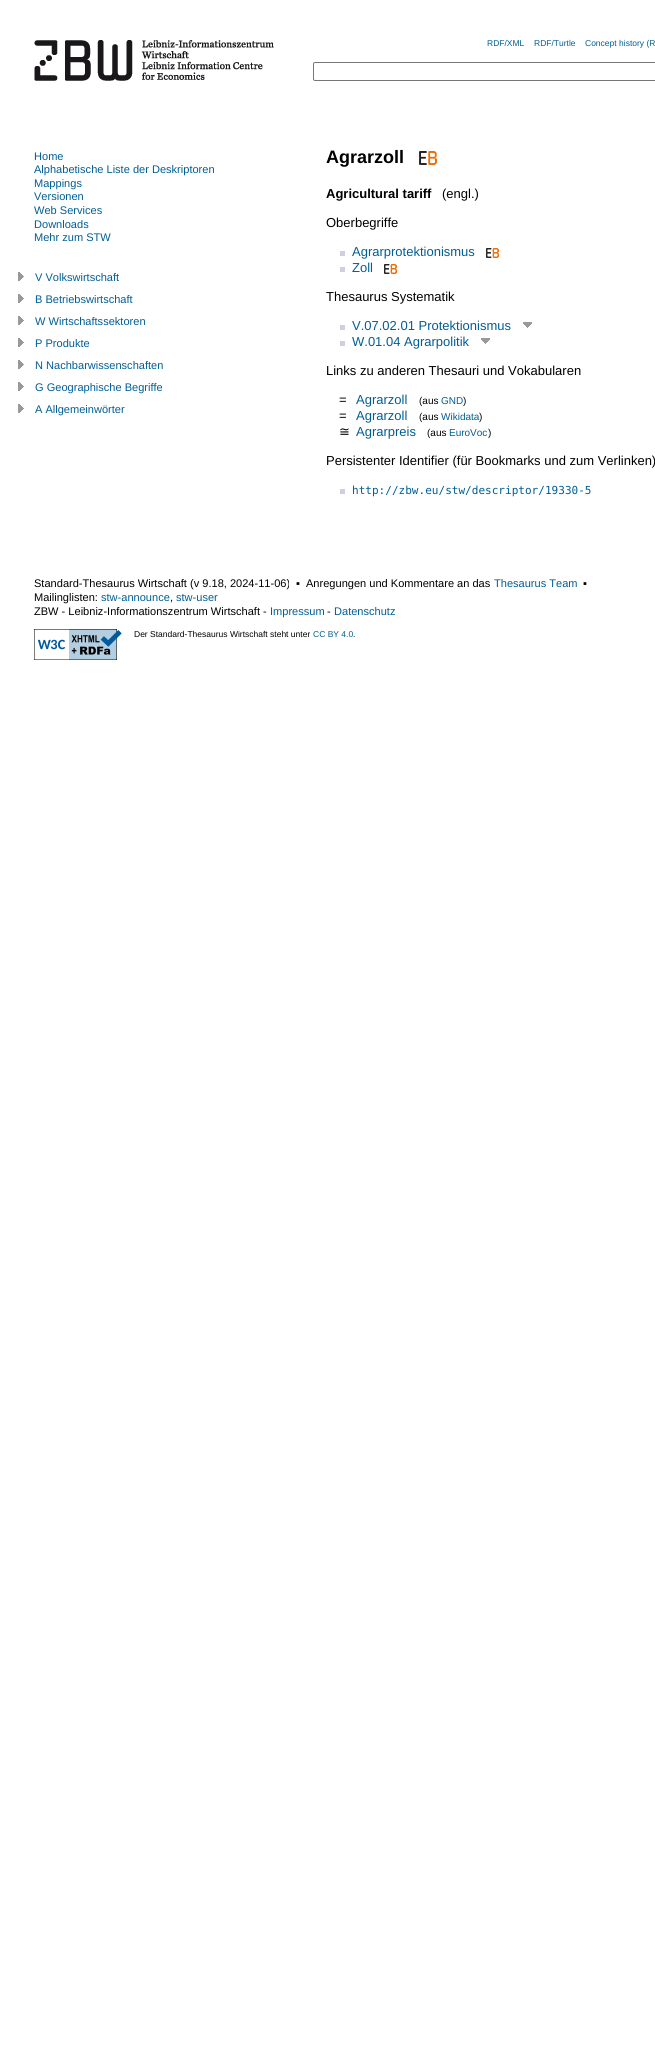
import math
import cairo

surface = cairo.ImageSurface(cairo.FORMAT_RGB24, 655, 2055)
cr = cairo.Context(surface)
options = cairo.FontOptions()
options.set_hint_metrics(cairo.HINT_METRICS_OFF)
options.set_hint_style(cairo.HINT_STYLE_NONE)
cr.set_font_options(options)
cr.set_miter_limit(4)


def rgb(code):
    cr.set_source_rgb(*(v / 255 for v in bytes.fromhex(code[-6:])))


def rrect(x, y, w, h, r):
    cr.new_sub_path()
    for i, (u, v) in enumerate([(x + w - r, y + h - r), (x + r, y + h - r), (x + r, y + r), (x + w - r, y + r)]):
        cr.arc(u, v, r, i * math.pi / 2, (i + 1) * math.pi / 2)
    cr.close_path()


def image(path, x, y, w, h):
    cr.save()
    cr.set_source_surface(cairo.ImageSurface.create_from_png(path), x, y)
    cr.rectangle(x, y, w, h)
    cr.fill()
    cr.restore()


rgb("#ffffff")
cr.paint()
image("img/1.png", 34, 40, 240, 41)
rrect(313.5, 62.5, 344, 18, 1.5)
rgb("#767676")
cr.set_line_width(1)
cr.stroke()
image("img/2.png", 18, 272, 6, 9)
image("img/2.png", 18, 294, 6, 9)
image("img/2.png", 18, 316, 6, 9)
image("img/2.png", 18, 338, 6, 9)
image("img/2.png", 18, 360, 6, 9)
image("img/2.png", 18, 382, 6, 9)
image("img/2.png", 18, 404, 6, 9)
image("img/3.png", 419, 151, 18, 14)
rgb("#d1cfdd")
cr.rectangle(340, 251, 5, 5)
cr.fill()
image("img/4.png", 486, 248, 13, 10)
cr.rectangle(340, 267, 5, 5)
cr.fill()
image("img/4.png", 384, 264, 13, 10)
cr.rectangle(340, 325, 5, 5)
cr.fill()
image("img/5.png", 523, 322, 9, 6)
cr.rectangle(340, 341, 5, 5)
cr.fill()
image("img/5.png", 481, 338, 9, 6)
cr.rectangle(340, 489, 5, 5)
cr.fill()
image("img/6.png", 34, 629, 88, 31)
cr.select_font_face("Liberation Sans")
cr.set_font_size(8.5)
rgb("#005d95")
for x, y, s in [
    (487, 46, "RDF/XML"),
    (534, 46, "RDF/Turtle"),
    (585, 46, "Concept history (R"),
]:
    cr.move_to(x, y)
    cr.show_text(s)
cr.set_font_size(11.05)
for x, y, s in [
    (34, 160, "Home"),
    (34, 173, "Alphabetische Liste der Deskriptoren"),
    (34, 187, "Mappings"),
    (34, 200, "Versionen"),
    (34, 214, "Web Services"),
    (34, 228, "Downloads"),
    (34, 241, "Mehr zum STW"),
    (35, 281, "V Volkswirtschaft"),
    (35, 303, "B Betriebswirtschaft"),
    (35, 325, "W Wirtschaftssektoren"),
    (35, 347, "P Produkte"),
    (35, 369, "N Nachbarwissenschaften"),
    (35, 391, "G Geographische Begriffe"),
    (35, 413, "A Allgemeinwörter"),
]:
    cr.move_to(x, y)
    cr.show_text(s)
cr.select_font_face("Liberation Sans", cairo.FONT_SLANT_NORMAL, cairo.FONT_WEIGHT_BOLD)
cr.set_font_size(18)
rgb("#000000")
cr.move_to(326, 163)
cr.show_text("Agrarzoll")
cr.set_font_size(13)
cr.move_to(326, 198)
cr.show_text("Agricultural tariff")
cr.select_font_face("Liberation Sans")
cr.move_to(442, 198)
cr.show_text("(engl.)")
cr.move_to(326, 227)
cr.show_text("Oberbegriffe")
rgb("#005d95")
cr.move_to(352, 256)
cr.show_text("Agrarprotektionismus")
cr.move_to(352, 272)
cr.show_text("Zoll")
rgb("#000000")
cr.move_to(326, 301)
cr.show_text("Thesaurus Systematik")
rgb("#005d95")
cr.move_to(352, 330)
cr.show_text("V.07.02.01 Protektionismus")
cr.move_to(352, 346)
cr.show_text("W.01.04 Agrarpolitik")
rgb("#000000")
cr.move_to(326, 375)
cr.show_text("Links zu anderen Thesauri und Vokabularen")
cr.move_to(339, 404)
cr.show_text("=")
rgb("#005d95")
cr.move_to(356, 404)
cr.show_text("Agrarzoll")
cr.set_font_size(10)
rgb("#000000")
cr.move_to(419, 404)
cr.show_text("(aus")
rgb("#005d95")
cr.move_to(441, 404)
cr.show_text("GND")
rgb("#000000")
cr.move_to(463, 404)
cr.show_text(")")
cr.set_font_size(13)
cr.move_to(339, 420)
cr.show_text("=")
rgb("#005d95")
cr.move_to(356, 420)
cr.show_text("Agrarzoll")
cr.set_font_size(10)
rgb("#000000")
cr.move_to(419, 420)
cr.show_text("(aus")
rgb("#005d95")
cr.move_to(441, 420)
cr.show_text("Wikidata")
rgb("#000000")
cr.move_to(479, 420)
cr.show_text(")")
cr.select_font_face("DejaVu Sans")
cr.set_font_size(13)
cr.move_to(339, 436)
cr.show_text("≅")
cr.select_font_face("Liberation Sans")
rgb("#005d95")
cr.move_to(356, 436)
cr.show_text("Agrarpreis")
cr.set_font_size(10)
rgb("#000000")
cr.move_to(427, 436)
cr.show_text("(aus")
rgb("#005d95")
cr.move_to(449, 436)
cr.show_text("EuroVoc")
rgb("#000000")
cr.move_to(488, 436)
cr.show_text(")")
cr.set_font_size(13)
cr.move_to(326, 465)
cr.show_text("Persistenter Identifier (für Bookmarks und zum Verlinken)")
cr.select_font_face("DejaVu Sans Mono")
cr.set_font_size(11.05)
rgb("#005d95")
cr.move_to(352, 494)
cr.show_text("http://zbw.eu/stw/descriptor/19330-5")
cr.select_font_face("Liberation Sans")
rgb("#000000")
for x, y, s in [
    (34, 587, "Standard-Thesaurus Wirtschaft (v 9.18, 2024-11-06)"),
    (296, 587, "▪"),
    (306, 587, "Anregungen und Kommentare an das"),
]:
    cr.move_to(x, y)
    cr.show_text(s)
rgb("#005d95")
cr.move_to(494, 587)
cr.show_text("Thesaurus Team")
rgb("#000000")
cr.move_to(583, 587)
cr.show_text("▪")
cr.move_to(34, 601)
cr.show_text("Mailinglisten:")
rgb("#005d95")
cr.move_to(101, 601)
cr.show_text("stw-announce")
rgb("#000000")
cr.move_to(170, 601)
cr.show_text(",")
rgb("#005d95")
cr.move_to(176, 601)
cr.show_text("stw-user")
rgb("#000000")
cr.move_to(34, 615)
cr.show_text("ZBW - Leibniz-Informationszentrum Wirtschaft -")
rgb("#005d95")
cr.move_to(270, 615)
cr.show_text("Impressum")
rgb("#000000")
cr.move_to(327, 615)
cr.show_text("-")
rgb("#005d95")
cr.move_to(334, 615)
cr.show_text("Datenschutz")
cr.set_font_size(8.5)
rgb("#000000")
cr.move_to(134, 637)
cr.show_text("Der Standard-Thesaurus Wirtschaft steht unter")
rgb("#005d95")
cr.move_to(313, 637)
cr.show_text("CC BY 4.0")
rgb("#000000")
cr.move_to(353, 637)
cr.show_text(".")
surface.write_to_png("page.png")
